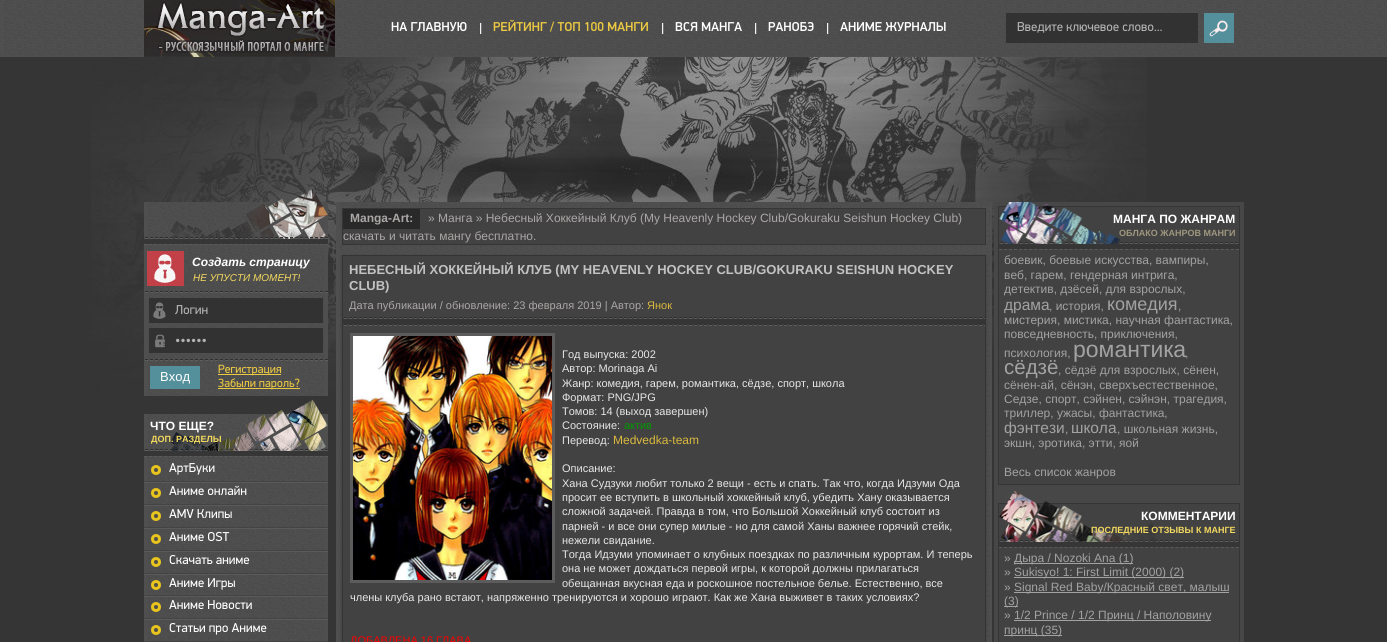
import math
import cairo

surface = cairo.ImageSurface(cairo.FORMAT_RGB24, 1387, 642)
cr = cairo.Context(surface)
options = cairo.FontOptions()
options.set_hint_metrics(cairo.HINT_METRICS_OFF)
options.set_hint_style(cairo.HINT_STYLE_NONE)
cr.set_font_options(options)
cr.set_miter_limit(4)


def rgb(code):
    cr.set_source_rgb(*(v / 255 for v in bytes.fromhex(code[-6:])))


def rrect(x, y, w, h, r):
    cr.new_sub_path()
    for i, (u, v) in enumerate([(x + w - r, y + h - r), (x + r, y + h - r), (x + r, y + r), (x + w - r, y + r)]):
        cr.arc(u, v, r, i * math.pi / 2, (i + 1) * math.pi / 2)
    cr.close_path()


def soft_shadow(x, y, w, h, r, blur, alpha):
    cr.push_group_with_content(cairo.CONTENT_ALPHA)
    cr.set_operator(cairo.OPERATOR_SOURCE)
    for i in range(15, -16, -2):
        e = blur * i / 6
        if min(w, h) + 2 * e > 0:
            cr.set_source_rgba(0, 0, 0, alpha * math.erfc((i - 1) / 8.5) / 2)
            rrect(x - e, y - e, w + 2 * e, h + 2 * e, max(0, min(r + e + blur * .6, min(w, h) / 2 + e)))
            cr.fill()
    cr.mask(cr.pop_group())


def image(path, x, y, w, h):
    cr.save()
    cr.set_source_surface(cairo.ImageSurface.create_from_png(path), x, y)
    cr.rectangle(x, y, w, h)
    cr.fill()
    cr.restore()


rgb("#353535")
cr.paint()
image("img/1.png", 91, 57, 1056, 335)
rgb("#4f4f4f")
cr.rectangle(0, 0, 1387, 57)
cr.fill()
image("img/2.png", 4, 0, 1383, 55)
image("img/3.png", 144, 0, 191, 57)
image("img/4.png", 391, 22, 76, 10)
image("img/5.png", 480, 23, 2, 11)
image("img/6.png", 493, 19, 155, 13)
image("img/7.png", 662, 23, 2, 11)
image("img/8.png", 675, 22, 67, 10)
image("img/9.png", 755, 23, 2, 11)
image("img/10.png", 768, 22, 46, 10)
image("img/11.png", 827, 23, 2, 11)
image("img/12.png", 840, 22, 106, 10)
rgb("#323232")
cr.rectangle(1006, 13, 192, 30)
cr.fill()
image("img/13.png", 1017, 22, 145, 11)
rgb("#54909b")
cr.rectangle(1204, 13, 30, 30)
cr.fill()
image("img/14.png", 1209, 20, 19, 17)
rgb("#4f4f4f")
cr.rectangle(144, 202, 184, 37)
cr.fill()
image("img/15.png", 148, 202, 176, 37)
image("img/16.png", 145, 237, 183, 2)
rgb("#363636")
cr.rectangle(144, 239, 184, 5)
cr.fill()
image("img/17.png", 170, 189, 158, 50)
image("img/18.png", 171, 237, 152, 2)
rgb("#4f4f4f")
cr.rectangle(144, 244, 184, 152)
cr.fill()
image("img/19.png", 148, 245, 176, 151)
cr.new_path()
cr.move_to(144, 244.5)
cr.line_to(328, 244.5)
rgb("#5a5a5a")
cr.set_line_width(1)
cr.set_dash([3, 2.03])
cr.stroke()
image("img/20.png", 145, 291, 183, 2)
image("img/21.png", 147, 251, 37, 35)
rgb("#323232")
cr.rectangle(149, 298, 174, 25)
cr.fill()
image("img/22.png", 153, 302, 13, 17)
image("img/23.png", 175, 305, 33, 10)
cr.rectangle(149, 328, 174, 25)
cr.fill()
image("img/24.png", 155, 334, 10, 14)
image("img/25.png", 176, 338, 30, 5)
image("img/26.png", 145, 359, 183, 2)
rgb("#ecc942")
cr.rectangle(218, 374, 63, 1)
cr.fill()
image("img/27.png", 218, 364, 64, 12)
rgb("#54909b")
cr.rectangle(150, 366, 50, 23)
cr.fill()
rgb("#ecc942")
cr.rectangle(218, 388, 82, 1)
cr.fill()
image("img/28.png", 218, 378, 82, 12)
rgb("#4f4f4f")
cr.rectangle(144, 414, 184, 227)
cr.fill()
image("img/29.png", 148, 414, 176, 227)
image("img/16.png", 145, 449, 183, 2)
rgb("#363636")
cr.rectangle(144, 451, 184, 5)
cr.fill()
image("img/30.png", 170, 399, 158, 52)
cr.new_path()
cr.move_to(144, 456.5)
cr.line_to(328, 456.5)
rgb("#5a5a5a")
cr.stroke()
cr.rectangle(144, 482, 184, 1)
cr.fill()
rgb("#444444")
cr.rectangle(144, 481, 184, 1)
cr.fill()
cr.arc(156, 470, 3.5, 0, 2 * math.pi)
rgb("#e8c41c")
cr.set_line_width(3)
cr.set_dash([])
cr.stroke()
image("img/31.png", 169, 463, 46, 12)
rgb("#5a5a5a")
cr.rectangle(144, 505, 184, 1)
cr.fill()
rgb("#444444")
cr.rectangle(144, 504, 184, 1)
cr.fill()
cr.arc(156, 493, 3.5, 0, 2 * math.pi)
rgb("#e8c41c")
cr.stroke()
image("img/32.png", 169, 485, 78, 11)
rgb("#5a5a5a")
cr.rectangle(144, 528, 184, 1)
cr.fill()
rgb("#444444")
cr.rectangle(144, 527, 184, 1)
cr.fill()
cr.arc(156, 516, 3.5, 0, 2 * math.pi)
rgb("#e8c41c")
cr.stroke()
image("img/33.png", 169, 509, 63, 10)
rgb("#5a5a5a")
cr.rectangle(144, 551, 184, 1)
cr.fill()
rgb("#444444")
cr.rectangle(144, 550, 184, 1)
cr.fill()
cr.arc(156, 539, 3.5, 0, 2 * math.pi)
rgb("#e8c41c")
cr.stroke()
image("img/34.png", 169, 531, 61, 11)
rgb("#5a5a5a")
cr.rectangle(144, 574, 184, 1)
cr.fill()
rgb("#444444")
cr.rectangle(144, 573, 184, 1)
cr.fill()
cr.arc(156, 562, 3.5, 0, 2 * math.pi)
rgb("#e8c41c")
cr.stroke()
image("img/35.png", 169, 555, 81, 10)
rgb("#5a5a5a")
cr.rectangle(144, 596, 184, 1)
cr.fill()
rgb("#444444")
cr.rectangle(144, 595, 184, 1)
cr.fill()
cr.arc(156, 585, 3.5, 0, 2 * math.pi)
rgb("#e8c41c")
cr.stroke()
image("img/36.png", 169, 578, 66, 12)
rgb("#5a5a5a")
cr.rectangle(144, 619, 184, 1)
cr.fill()
rgb("#444444")
cr.rectangle(144, 618, 184, 1)
cr.fill()
cr.arc(156, 607, 3.5, 0, 2 * math.pi)
rgb("#e8c41c")
cr.stroke()
image("img/37.png", 169, 600, 83, 10)
rgb("#444444")
cr.rectangle(144, 641, 184, 1)
cr.fill()
cr.arc(156, 630, 3.5, 0, 2 * math.pi)
rgb("#e8c41c")
cr.stroke()
image("img/38.png", 169, 623, 98, 12)
rgb("#4f4f4f")
cr.rectangle(336, 202, 656, 440)
cr.fill()
image("img/39.png", 340, 202, 650, 439)
rgb("#424242")
cr.rectangle(342.5, 208.5, 643, 36)
cr.fill_preserve()
rgb("#363636")
cr.set_line_width(1)
cr.stroke()
rgb("#292929")
cr.rectangle(343, 209, 77, 20)
cr.fill()
rgb("#000000")
soft_shadow(342, 257, 644, 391, 0, 2, 0.2)
rgb("#424242")
cr.rectangle(342.5, 255.5, 643, 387)
cr.fill_preserve()
rgb("#343434")
cr.stroke()
image("img/40.png", 344, 317, 641, 2)
rgb("#353535")
cr.rectangle(343, 319, 642, 5)
cr.fill()
image("img/40.png", 344, 324, 641, 2)
cr.rectangle(351.5, 334.5, 202, 247)
rgb("#5c5c5c")
cr.set_line_width(3)
cr.stroke()
image("img/41.png", 353, 336, 199, 244)
rgb("#474747")
cr.rectangle(994, 202, 250, 440)
cr.fill()
rgb("#424242")
cr.rectangle(998.5, 206.5, 241, 278)
cr.fill_preserve()
rgb("#353535")
cr.set_line_width(1)
cr.stroke()
image("img/42.png", 1000, 242, 238, 2)
rgb("#363636")
cr.rectangle(999, 244, 240, 5)
cr.fill()
image("img/43.png", 999, 202, 121, 42)
cr.new_path()
cr.move_to(999, 249.5)
cr.line_to(1239, 249.5)
rgb("#5a5a5a")
cr.set_dash([3, 2.04])
cr.stroke()
rgb("#424242")
cr.rectangle(998.5, 503.5, 241, 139)
cr.fill_preserve()
rgb("#353535")
cr.set_dash([])
cr.stroke()
image("img/42.png", 1000, 540, 238, 2)
rgb("#363636")
cr.rectangle(999, 542, 240, 5)
cr.fill()
image("img/44.png", 999, 490, 158, 52)
cr.new_path()
cr.move_to(999, 547.5)
cr.line_to(1239, 547.5)
rgb("#5a5a5a")
cr.set_dash([3, 2.04])
cr.stroke()
for x, y, w, h, color in [
    (1014, 563, 119, 1, "#a2a2a2"),
    (1014, 577, 170, 1, "#a2a2a2"),
    (1014, 592, 215, 1, "#a2a2a2"),
    (1004, 606, 14, 1, "#a2a2a2"),
    (1014, 620, 197, 1, "#a2a2a2"),
    (1004, 635, 58, 1, "#a2a2a2"),
]:
    rgb(color)
    cr.rectangle(x, y, w, h)
    cr.fill()
cr.select_font_face("Liberation Sans", cairo.FONT_SLANT_ITALIC, cairo.FONT_WEIGHT_BOLD)
cr.set_font_size(12)
rgb("#ffffff")
cr.move_to(192, 266)
cr.show_text("Создать страницу")
cr.select_font_face("Liberation Sans", cairo.FONT_SLANT_ITALIC)
cr.set_font_size(10)
rgb("#f3d95f")
cr.move_to(193, 281)
cr.show_text("НЕ УПУСТИ МОМЕНТ!")
cr.select_font_face("Liberation Sans")
cr.set_font_size(13)
rgb("#ffffff")
cr.move_to(160, 381)
cr.show_text("Вход")
cr.select_font_face("Liberation Sans", cairo.FONT_SLANT_NORMAL, cairo.FONT_WEIGHT_BOLD)
cr.set_font_size(12)
cr.move_to(150, 430)
cr.show_text("ЧТО ЕЩЕ?")
cr.set_font_size(9)
rgb("#f3d95f")
cr.move_to(151, 442)
cr.show_text("ДОП. РАЗДЕЛЫ")
cr.set_font_size(12)
rgb("#aca7a7")
cr.move_to(350, 222)
cr.show_text("Manga-Art:")
cr.select_font_face("Liberation Sans")
cr.move_to(428, 222)
cr.show_text("» Манга » Небесный Хоккейный Клуб (My Heavenly Hockey Club/Gokuraku Seishun Hockey Club)")
cr.move_to(343, 240)
cr.show_text("cкачать и читать мангу бесплатно.")
cr.select_font_face("Liberation Sans", cairo.FONT_SLANT_NORMAL, cairo.FONT_WEIGHT_BOLD)
cr.set_font_size(13)
rgb("#c3c2c2")
cr.move_to(349, 274)
cr.show_text("НЕБЕСНЫЙ ХОККЕЙНЫЙ КЛУБ (MY HEAVENLY HOCKEY CLUB/GOKURAKU SEISHUN HOCKEY")
cr.move_to(349, 290)
cr.show_text("CLUB)")
cr.select_font_face("Liberation Sans")
cr.set_font_size(11)
rgb("#aca7a7")
cr.move_to(349, 309)
cr.show_text("Дата публикации / обновление: 23 февраля 2019 | Автор:")
rgb("#dbb93d")
cr.move_to(647, 309)
cr.show_text("Янок")
rgb("#e7e7e7")
for x, y, s in [
    (562, 358, "Год выпуска: 2002"),
    (562, 372, "Автор: Morinaga Ai"),
    (562, 387, "Жанр: комедия, гарем, романтика, сёдзе, спорт, школа"),
    (562, 401, "Формат: PNG/JPG"),
    (562, 415, "Томов: 14 (выход завершен)"),
    (562, 429, "Состояние:"),
]:
    cr.move_to(x, y)
    cr.show_text(s)
rgb("#009900")
cr.move_to(624, 429)
cr.show_text("актив")
rgb("#e7e7e7")
cr.move_to(562, 444)
cr.show_text("Перевод:")
cr.set_font_size(12)
rgb("#dbb93d")
cr.move_to(613, 444)
cr.show_text("Medvedka-team")
cr.set_font_size(11)
rgb("#e7e7e7")
for x, y, s in [
    (562, 472, "Описание:"),
    (562, 487, "Хана Судзуки любит только 2 вещи - есть и спать. Так что, когда Идзуми Ода"),
    (562, 501, "просит ее вступить в школьный хоккейный клуб, убедить Хану оказывается"),
    (562, 515, "сложной задачей. Правда в том, что Большой Хоккейный клуб состоит из"),
    (562, 530, "парней - и все они супер милые - но для самой Ханы важнее горячий стейк,"),
    (562, 544, "нежели свидание."),
    (562, 558, "Тогда Идзуми упоминает о клубных поездках по различным курортам. И теперь"),
    (562, 572, "она не может дождаться первой игры, к которой должны прилагаться"),
    (562, 587, "обещанная вкусная еда и роскошное постельное белье. Естественно, все"),
    (350, 601, "члены клуба рано встают, напряженно тренируются и хорошо играют. Как же Хана выживет в таких условиях?"),
]:
    cr.move_to(x, y)
    cr.show_text(s)
rgb("#ff0000")
cr.move_to(350, 644)
cr.show_text("ДОБАВЛЕНА 16 ГЛАВА")
cr.select_font_face("Liberation Sans", cairo.FONT_SLANT_NORMAL, cairo.FONT_WEIGHT_BOLD)
cr.set_font_size(12)
rgb("#ffffff")
cr.move_to(1113, 223)
cr.show_text("МАНГА ПО ЖАНРАМ")
cr.set_font_size(9)
rgb("#9e977e")
cr.move_to(1119, 236)
cr.show_text("ОБЛАКО ЖАНРОВ МАНГИ")
cr.select_font_face("Liberation Sans")
cr.set_font_size(12)
rgb("#a2a2a2")
for x, y, s in [
    (1004, 264, "боевик, боевые искусства, вампиры,"),
    (1004, 279, "веб, гарем, гендерная интрига,"),
    (1004, 293, "детектив, дзёсей, для взрослых,"),
]:
    cr.move_to(x, y)
    cr.show_text(s)
cr.set_font_size(15.5)
cr.move_to(1004, 310)
cr.show_text("драма")
cr.set_font_size(12)
cr.move_to(1049, 310)
cr.show_text(", история,")
cr.set_font_size(18)
cr.move_to(1107, 310)
cr.show_text("комедия")
cr.set_font_size(12)
for x, y, s in [
    (1178, 310, ","),
    (1004, 324, "мистерия, мистика, научная фантастика,"),
    (1004, 338, "повседневность, приключения,"),
    (1004, 357, "психология,"),
]:
    cr.move_to(x, y)
    cr.show_text(s)
cr.set_font_size(23)
cr.move_to(1073, 357)
cr.show_text("романтика")
cr.set_font_size(12)
cr.move_to(1185, 357)
cr.show_text(",")
cr.set_font_size(20.5)
cr.move_to(1004, 374)
cr.show_text("сёдзё")
cr.set_font_size(12)
for x, y, s in [
    (1058, 374, ", сёдзё для взрослых, сёнен,"),
    (1004, 389, "сёнен-ай, сёнэн, сверхъестественное,"),
    (1004, 403, "Седзе, спорт, сэйнен, сэйнэн, трагедия,"),
    (1004, 417, "триллер, ужасы, фантастика,"),
]:
    cr.move_to(x, y)
    cr.show_text(s)
cr.set_font_size(15.5)
cr.move_to(1004, 433)
cr.show_text("фэнтези")
cr.set_font_size(12)
cr.move_to(1065, 433)
cr.show_text(",")
cr.set_font_size(15.5)
cr.move_to(1071, 433)
cr.show_text("школа")
cr.set_font_size(12)
for x, y, s in [
    (1117, 433, ", школьная жизнь,"),
    (1004, 447, "экшн, эротика, этти, яой"),
    (1004, 476, "Весь список жанров"),
]:
    cr.move_to(x, y)
    cr.show_text(s)
cr.select_font_face("Liberation Sans", cairo.FONT_SLANT_NORMAL, cairo.FONT_WEIGHT_BOLD)
rgb("#ffffff")
cr.move_to(1141, 520)
cr.show_text("КОММЕНТАРИИ")
cr.set_font_size(9)
rgb("#f3d95f")
cr.move_to(1091, 533)
cr.show_text("ПОСЛЕДНИЕ ОТЗЫВЫ К МАНГЕ")
cr.select_font_face("Liberation Sans")
cr.set_font_size(12)
rgb("#a2a2a2")
for x, y, s in [
    (1004, 562, "»"),
    (1014, 562, "Дыра / Nozoki Ana (1)"),
    (1004, 576, "»"),
    (1014, 576, "Sukisyo! 1: First Limit (2000) (2)"),
    (1004, 591, "»"),
    (1014, 591, "Signal Red Baby/Красный свет, малыш"),
    (1004, 605, "(3)"),
    (1004, 619, "»"),
    (1014, 619, "1/2 Prince / 1/2 Принц / Наполовину"),
    (1004, 634, "принц (35)"),
]:
    cr.move_to(x, y)
    cr.show_text(s)
surface.write_to_png("page.png")
